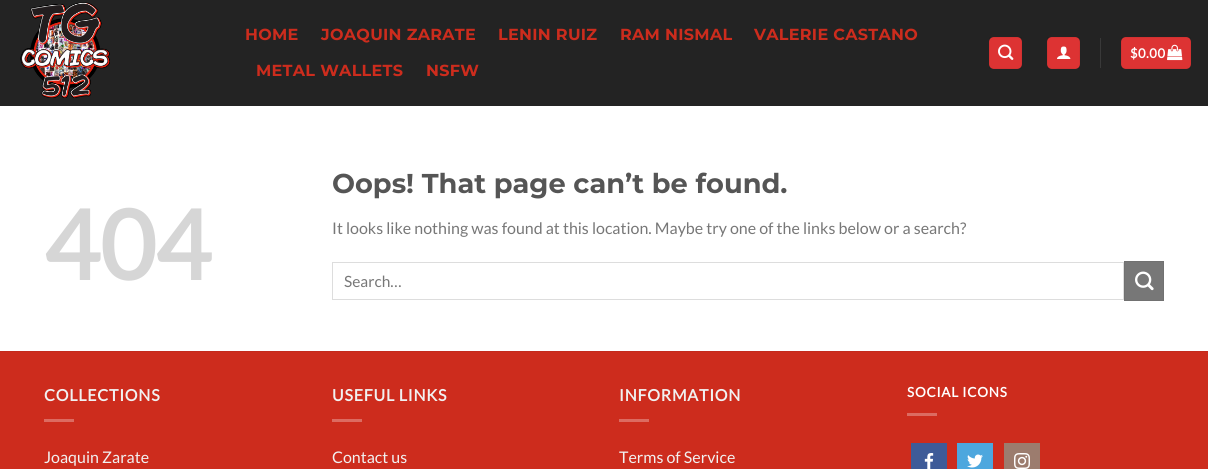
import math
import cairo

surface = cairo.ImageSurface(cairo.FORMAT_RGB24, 1208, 469)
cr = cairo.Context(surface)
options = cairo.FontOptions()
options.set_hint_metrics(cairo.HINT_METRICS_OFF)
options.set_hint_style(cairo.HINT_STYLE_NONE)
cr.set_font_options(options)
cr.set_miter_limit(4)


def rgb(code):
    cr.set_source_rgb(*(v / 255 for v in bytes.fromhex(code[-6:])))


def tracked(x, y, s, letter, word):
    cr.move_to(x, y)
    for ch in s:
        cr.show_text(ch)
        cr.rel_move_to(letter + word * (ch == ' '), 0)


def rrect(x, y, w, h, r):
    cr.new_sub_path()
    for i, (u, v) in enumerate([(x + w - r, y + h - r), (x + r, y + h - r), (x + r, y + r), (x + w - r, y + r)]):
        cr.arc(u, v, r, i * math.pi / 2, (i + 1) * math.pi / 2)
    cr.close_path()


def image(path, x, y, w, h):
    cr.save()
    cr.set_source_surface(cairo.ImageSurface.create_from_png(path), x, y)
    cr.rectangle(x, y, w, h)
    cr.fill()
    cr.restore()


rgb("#ffffff")
cr.paint()
rgb("#232323")
cr.rectangle(0, 0, 1208, 106)
cr.fill()
image("img/1.png", 20, 2, 90, 96)
rgb("#dd3333")
rrect(989, 37, 33, 32, 5)
cr.fill()
cr.rectangle(989.5, 37.5, 32, 31)
cr.set_source_rgba(0, 0, 0, 0.05)
cr.set_line_width(1)
cr.stroke()
image("img/2.png", 998, 44, 16, 16)
rgb("#dd3333")
rrect(1047, 37, 33, 32, 5)
cr.fill()
cr.rectangle(1047.5, 37.5, 32, 31)
cr.set_source_rgba(0, 0, 0, 0.05)
cr.stroke()
image("img/3.png", 1057, 46, 14, 13)
rgb("#393939")
cr.rectangle(1100, 38, 1, 30)
cr.fill()
rgb("#dd3333")
rrect(1121, 37, 70, 32, 5)
cr.fill()
cr.rectangle(1121.5, 37.5, 69, 31)
cr.set_source_rgba(0, 0, 0, 0.05)
cr.stroke()
image("img/4.png", 1167, 44, 16, 17)
cr.rectangle(332.5, 262.5, 791, 37)
rgb("#dddddd")
cr.stroke()
rgb("#777777")
cr.rectangle(1124.5, 261.5, 39, 39)
cr.fill_preserve()
rgb("#717171")
cr.stroke()
image("img/5.png", 1135, 271, 19, 20)
for x, y, w, h, color in [
    (0, 352, 1208, 117, "#cd2c1d"),
    (0, 351, 1208, 1, "#c32a1c"),
    (44, 419, 30, 3, "#dc6b61"),
    (332, 419, 30, 3, "#dc6b61"),
    (619, 419, 30, 3, "#dc6b61"),
    (907, 413, 30, 3, "#dc6b61"),
    (911, 443, 36, 26, "#3e5b98"),
]:
    rgb(color)
    cr.rectangle(x, y, w, h)
    cr.fill()
image("img/6.png", 924, 453, 10, 16)
rgb("#4da7de")
cr.rectangle(957, 443, 36, 26)
cr.fill()
image("img/7.png", 967, 454, 16, 14)
rgb("#9c7c6e")
cr.rectangle(1004, 443, 36, 26)
cr.fill()
image("img/8.png", 1014, 453, 16, 16)
cr.select_font_face("Montserrat", cairo.FONT_SLANT_NORMAL, cairo.FONT_WEIGHT_BOLD)
cr.set_font_size(16)
rgb("#cd2c1d")
for x, y, s in [
    (245, 40, "HOME"),
    (321, 40, "JOAQUIN ZARATE"),
    (498, 40, "LENIN RUIZ"),
    (620, 40, "RAM NISMAL"),
    (754, 40, "VALERIE CASTANO"),
    (256, 76, "METAL WALLETS"),
    (426, 76, "NSFW"),
]:
    tracked(x, y, s, 0.3, 0)
cr.select_font_face("Lato", cairo.FONT_SLANT_NORMAL, cairo.FONT_WEIGHT_BOLD)
cr.set_font_size(13)
rgb("#ffffff")
tracked(1130, 58, "$0.00", 0.5, 0)
cr.set_font_size(96)
rgb("#d6d6d6")
cr.move_to(44, 280)
cr.show_text("404")
cr.select_font_face("Montserrat", cairo.FONT_SLANT_NORMAL, cairo.FONT_WEIGHT_BOLD)
cr.set_font_size(27.25)
rgb("#555555")
cr.move_to(332, 193)
cr.show_text("Oops! That page can’t be found.")
cr.select_font_face("Lato")
cr.set_font_size(16)
rgb("#777777")
cr.move_to(332, 234)
cr.show_text("It looks like nothing was found at this location. Maybe try one of the links below or a search?")
cr.set_font_size(15.5)
cr.move_to(344, 287)
cr.show_text("Search…")
cr.select_font_face("Lato", cairo.FONT_SLANT_NORMAL, cairo.FONT_WEIGHT_BOLD)
cr.set_font_size(16)
rgb("#f1f1f1")
tracked(44, 401, "COLLECTIONS", 0.75, 0)
cr.select_font_face("Lato")
cr.move_to(44, 463)
cr.show_text("Joaquin Zarate")
cr.select_font_face("Lato", cairo.FONT_SLANT_NORMAL, cairo.FONT_WEIGHT_BOLD)
tracked(332, 401, "USEFUL LINKS", 0.75, 0)
cr.select_font_face("Lato")
cr.move_to(332, 463)
cr.show_text("Contact us")
cr.select_font_face("Lato", cairo.FONT_SLANT_NORMAL, cairo.FONT_WEIGHT_BOLD)
tracked(619, 401, "INFORMATION", 0.75, 0)
cr.select_font_face("Lato")
cr.move_to(619, 463)
cr.show_text("Terms of Service")
cr.select_font_face("Lato", cairo.FONT_SLANT_NORMAL, cairo.FONT_WEIGHT_BOLD)
cr.set_font_size(13.5)
rgb("#ffffff")
tracked(907, 397, "SOCIAL ICONS", 0.75, 0)
surface.write_to_png("page.png")
